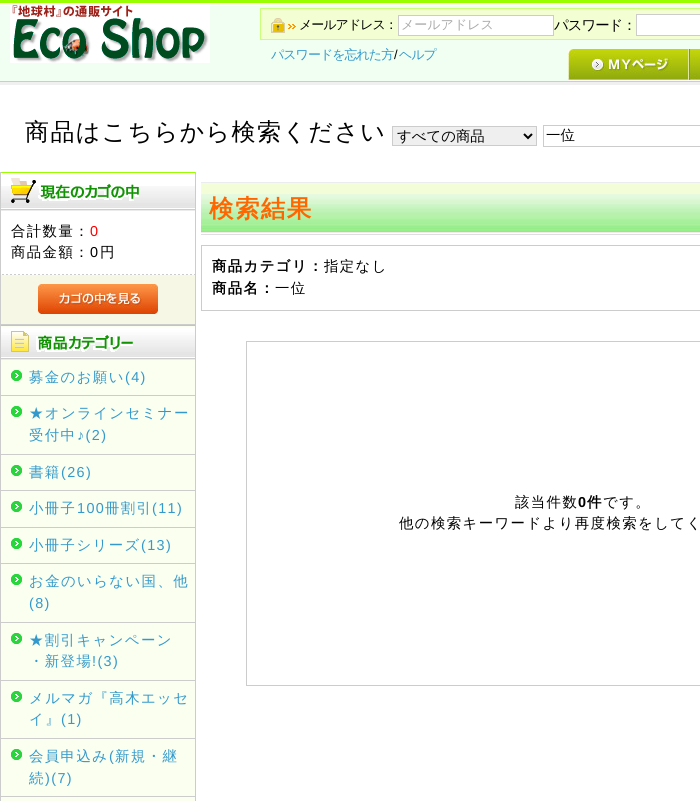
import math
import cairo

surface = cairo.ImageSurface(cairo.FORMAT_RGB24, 700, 801)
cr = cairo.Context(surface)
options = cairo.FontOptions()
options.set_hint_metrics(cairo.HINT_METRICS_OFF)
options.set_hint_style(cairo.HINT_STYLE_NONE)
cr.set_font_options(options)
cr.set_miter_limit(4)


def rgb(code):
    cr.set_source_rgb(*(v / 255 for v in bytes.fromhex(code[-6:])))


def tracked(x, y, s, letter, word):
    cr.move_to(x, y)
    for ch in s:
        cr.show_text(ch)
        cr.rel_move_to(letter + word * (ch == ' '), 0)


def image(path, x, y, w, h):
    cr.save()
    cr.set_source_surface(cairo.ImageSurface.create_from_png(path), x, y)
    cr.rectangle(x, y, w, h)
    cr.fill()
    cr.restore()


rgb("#fafff0")
cr.paint()
image("img/1.png", 0, 6, 700, 79)
rgb("#99ff00")
cr.rectangle(0, 0, 700, 3)
cr.fill()
image("img/2.png", 10, 3, 200, 60)
rgb("#f3fed3")
cr.rectangle(260.5, 8.5, 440, 31)
cr.fill_preserve()
rgb("#c9ff79")
cr.set_line_width(1)
cr.stroke()
image("img/3.png", 271, 18, 25, 15)
rgb("#ffffff")
cr.rectangle(398.5, 15.5, 155, 20)
cr.fill_preserve()
rgb("#cccccc")
cr.stroke()
rgb("#ffffff")
cr.rectangle(636.5, 14.5, 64, 21)
cr.fill_preserve()
rgb("#cccccc")
cr.stroke()
image("img/4.png", 568, 49, 121, 32)
image("img/5.png", 689, 49, 11, 32)
rgb("#ffffff")
cr.rectangle(0, 85, 700, 716)
cr.fill()
rgb("#efefef")
cr.rectangle(392.5, 126.5, 144, 19)
cr.fill_preserve()
rgb("#cccccc")
cr.stroke()
cr.new_path()
cr.move_to(524, 134)
cr.line_to(528, 138)
cr.line_to(532, 134)
rgb("#000000")
cr.set_line_width(2)
cr.stroke()
cr.rectangle(543.5, 125.5, 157, 21)
rgb("#cccccc")
cr.set_line_width(1)
cr.stroke()
image("img/6.png", 1, 186, 194, 25)
for x, y, w, h, color in [
    (0, 172, 196, 1, "#99ff00"),
    (195, 172, 1, 629, "#cccccc"),
    (0, 172, 1, 39, "#cccccc"),
]:
    rgb(color)
    cr.rectangle(x, y, w, h)
    cr.fill()
image("img/7.png", 11, 178, 128, 25)
for x, y, w, h, color in [
    (0, 324, 196, 1, "#cccccc"),
    (0, 211, 1, 590, "#cccccc"),
    (1, 275, 194, 49, "#f7f7e6"),
]:
    rgb(color)
    cr.rectangle(x, y, w, h)
    cr.fill()
image("img/8.png", 1, 274, 194, 1)
image("img/9.png", 38, 284, 120, 30)
rgb("#fafff0")
cr.rectangle(1, 326, 194, 475)
cr.fill()
image("img/10.png", 1, 327, 194, 33)
rgb("#99ff00")
cr.rectangle(1, 325, 194, 1)
cr.fill()
image("img/11.png", 11, 331, 122, 21)
rgb("#cccccc")
cr.rectangle(1, 395, 194, 1)
cr.fill()
image("img/12.png", 11, 370, 11, 11)
cr.rectangle(1, 454, 194, 1)
cr.fill()
image("img/12.png", 11, 406, 11, 11)
cr.rectangle(1, 490, 194, 1)
cr.fill()
image("img/12.png", 11, 465, 11, 11)
cr.rectangle(1, 527, 194, 1)
cr.fill()
image("img/12.png", 11, 501, 11, 11)
cr.rectangle(1, 563, 194, 1)
cr.fill()
image("img/12.png", 11, 538, 11, 11)
cr.rectangle(1, 622, 194, 1)
cr.fill()
image("img/12.png", 11, 574, 11, 11)
cr.rectangle(1, 680, 194, 1)
cr.fill()
image("img/12.png", 11, 633, 11, 11)
cr.rectangle(1, 738, 194, 1)
cr.fill()
image("img/12.png", 11, 691, 11, 11)
cr.rectangle(1, 796, 194, 1)
cr.fill()
image("img/12.png", 11, 749, 11, 11)
rgb("#f3fed8")
cr.rectangle(201, 183, 499, 11)
cr.fill()
image("img/13.png", 201, 194, 499, 41)
rgb("#ebeced")
cr.rectangle(201, 182, 499, 1)
cr.fill()
cr.rectangle(201.5, 245.5, 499, 65)
rgb("#cccccc")
cr.stroke()
cr.rectangle(246.5, 341.5, 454, 344)
cr.stroke()
cr.select_font_face("WenQuanYi Zen Hei Medium")
cr.set_font_size(13)
rgb("#000000")
tracked(299, 29, "メールアドレス：", -1, 0)
rgb("#aaaaaa")
cr.move_to(401, 29)
cr.show_text("メールアドレス")
cr.set_font_size(14.4)
rgb("#000000")
tracked(554, 30, "パスワード：", -1, 0)
cr.set_font_size(13)
rgb("#3399cc")
tracked(271, 59, "パスワードを忘れた方", -1, 0)
cr.select_font_face("Liberation Sans")
rgb("#000000")
tracked(394, 59, "/", -1, 0)
cr.select_font_face("WenQuanYi Zen Hei Medium")
rgb("#3399cc")
tracked(399, 59, "ヘルプ", -1, 0)
cr.set_font_size(24)
rgb("#000000")
tracked(25, 140, "商品はこちらから検索ください", 1.4, 0)
cr.set_font_size(14.4)
cr.move_to(397, 141)
cr.show_text("すべての商品")
cr.move_to(546, 140)
cr.show_text("一位")
tracked(11, 236, "合計数量：", 1.4, 0)
cr.select_font_face("Liberation Sans")
rgb("#ff0000")
tracked(90, 236, "0", 1.4, 0)
cr.select_font_face("WenQuanYi Zen Hei Medium")
rgb("#000000")
tracked(11, 257, "商品金額：", 1.4, 0)
cr.select_font_face("Liberation Sans")
tracked(90, 257, "0", 1.4, 0)
cr.select_font_face("WenQuanYi Zen Hei Medium")
tracked(100, 257, "円", 1.4, 0)
rgb("#3399cc")
tracked(29, 382, "募金のお願い", 1.4, 0)
cr.select_font_face("Liberation Sans")
tracked(125, 382, "(4)", 1.4, 0)
cr.select_font_face("WenQuanYi Zen Hei Medium")
tracked(29, 418, "★オンラインセミナー", 1.4, 0)
tracked(29, 440, "受付中", 1.4, 0)
cr.select_font_face("Liberation Sans")
tracked(77, 440, "♪(2)", 1.4, 0)
cr.select_font_face("WenQuanYi Zen Hei Medium")
tracked(29, 477, "書籍", 1.4, 0)
cr.select_font_face("Liberation Sans")
tracked(61, 477, "(26)", 1.4, 0)
cr.select_font_face("WenQuanYi Zen Hei Medium")
tracked(29, 513, "小冊子", 1.4, 0)
cr.select_font_face("Liberation Sans")
tracked(77, 513, "100", 1.4, 0)
cr.select_font_face("WenQuanYi Zen Hei Medium")
tracked(105, 513, "冊割引", 1.4, 0)
cr.select_font_face("Liberation Sans")
tracked(152, 513, "(11)", 1.4, 0)
cr.select_font_face("WenQuanYi Zen Hei Medium")
tracked(29, 550, "小冊子シリーズ", 1.4, 0)
cr.select_font_face("Liberation Sans")
tracked(141, 550, "(13)", 1.4, 0)
cr.select_font_face("WenQuanYi Zen Hei Medium")
tracked(29, 586, "お金のいらない国、他", 1.4, 0)
cr.select_font_face("Liberation Sans")
tracked(29, 608, "(8)", 1.4, 0)
cr.select_font_face("WenQuanYi Zen Hei Medium")
tracked(29, 645, "★割引キャンペーン", 1.4, 0)
tracked(29, 666, "・新登場", 1.4, 0)
cr.select_font_face("Liberation Sans")
tracked(92, 666, "!(3)", 1.4, 0)
cr.select_font_face("WenQuanYi Zen Hei Medium")
tracked(29, 703, "メルマガ『高木エッセ", 1.4, 0)
tracked(29, 724, "イ』", 1.4, 0)
cr.select_font_face("Liberation Sans")
tracked(61, 724, "(1)", 1.4, 0)
cr.select_font_face("WenQuanYi Zen Hei Medium")
tracked(29, 761, "会員申込み", 1.4, 0)
cr.select_font_face("Liberation Sans")
tracked(109, 761, "(", 1.4, 0)
cr.select_font_face("WenQuanYi Zen Hei Medium")
tracked(115, 761, "新規・継", 1.4, 0)
tracked(29, 783, "続", 1.4, 0)
cr.select_font_face("Liberation Sans")
tracked(45, 783, ")(7)", 1.4, 0)
cr.select_font_face("WenQuanYi Zen Hei", cairo.FONT_SLANT_NORMAL, cairo.FONT_WEIGHT_BOLD)
cr.set_font_size(24.5)
rgb("#ff6600")
tracked(209, 217, "検索結果", 1.4, 0)
cr.set_font_size(14.4)
rgb("#000000")
tracked(212, 271, "商品カテゴリ：", 1.4, 0)
cr.select_font_face("WenQuanYi Zen Hei Medium")
tracked(324, 271, "指定なし", 1.4, 0)
cr.select_font_face("WenQuanYi Zen Hei", cairo.FONT_SLANT_NORMAL, cairo.FONT_WEIGHT_BOLD)
tracked(212, 293, "商品名：", 1.4, 0)
cr.select_font_face("WenQuanYi Zen Hei Medium")
tracked(275, 293, "一位", 1.4, 0)
tracked(515, 507, "該当件数", 1.4, 0)
cr.select_font_face("Liberation Sans", cairo.FONT_SLANT_NORMAL, cairo.FONT_WEIGHT_BOLD)
tracked(578, 507, "0", 1.4, 0)
cr.select_font_face("WenQuanYi Zen Hei", cairo.FONT_SLANT_NORMAL, cairo.FONT_WEIGHT_BOLD)
tracked(587, 507, "件", 1.4, 0)
cr.select_font_face("WenQuanYi Zen Hei Medium")
tracked(603, 507, "です。", 1.4, 0)
tracked(399, 528, "他の検索キーワードより再度検索をしてく", 1.4, 0)
surface.write_to_png("page.png")
